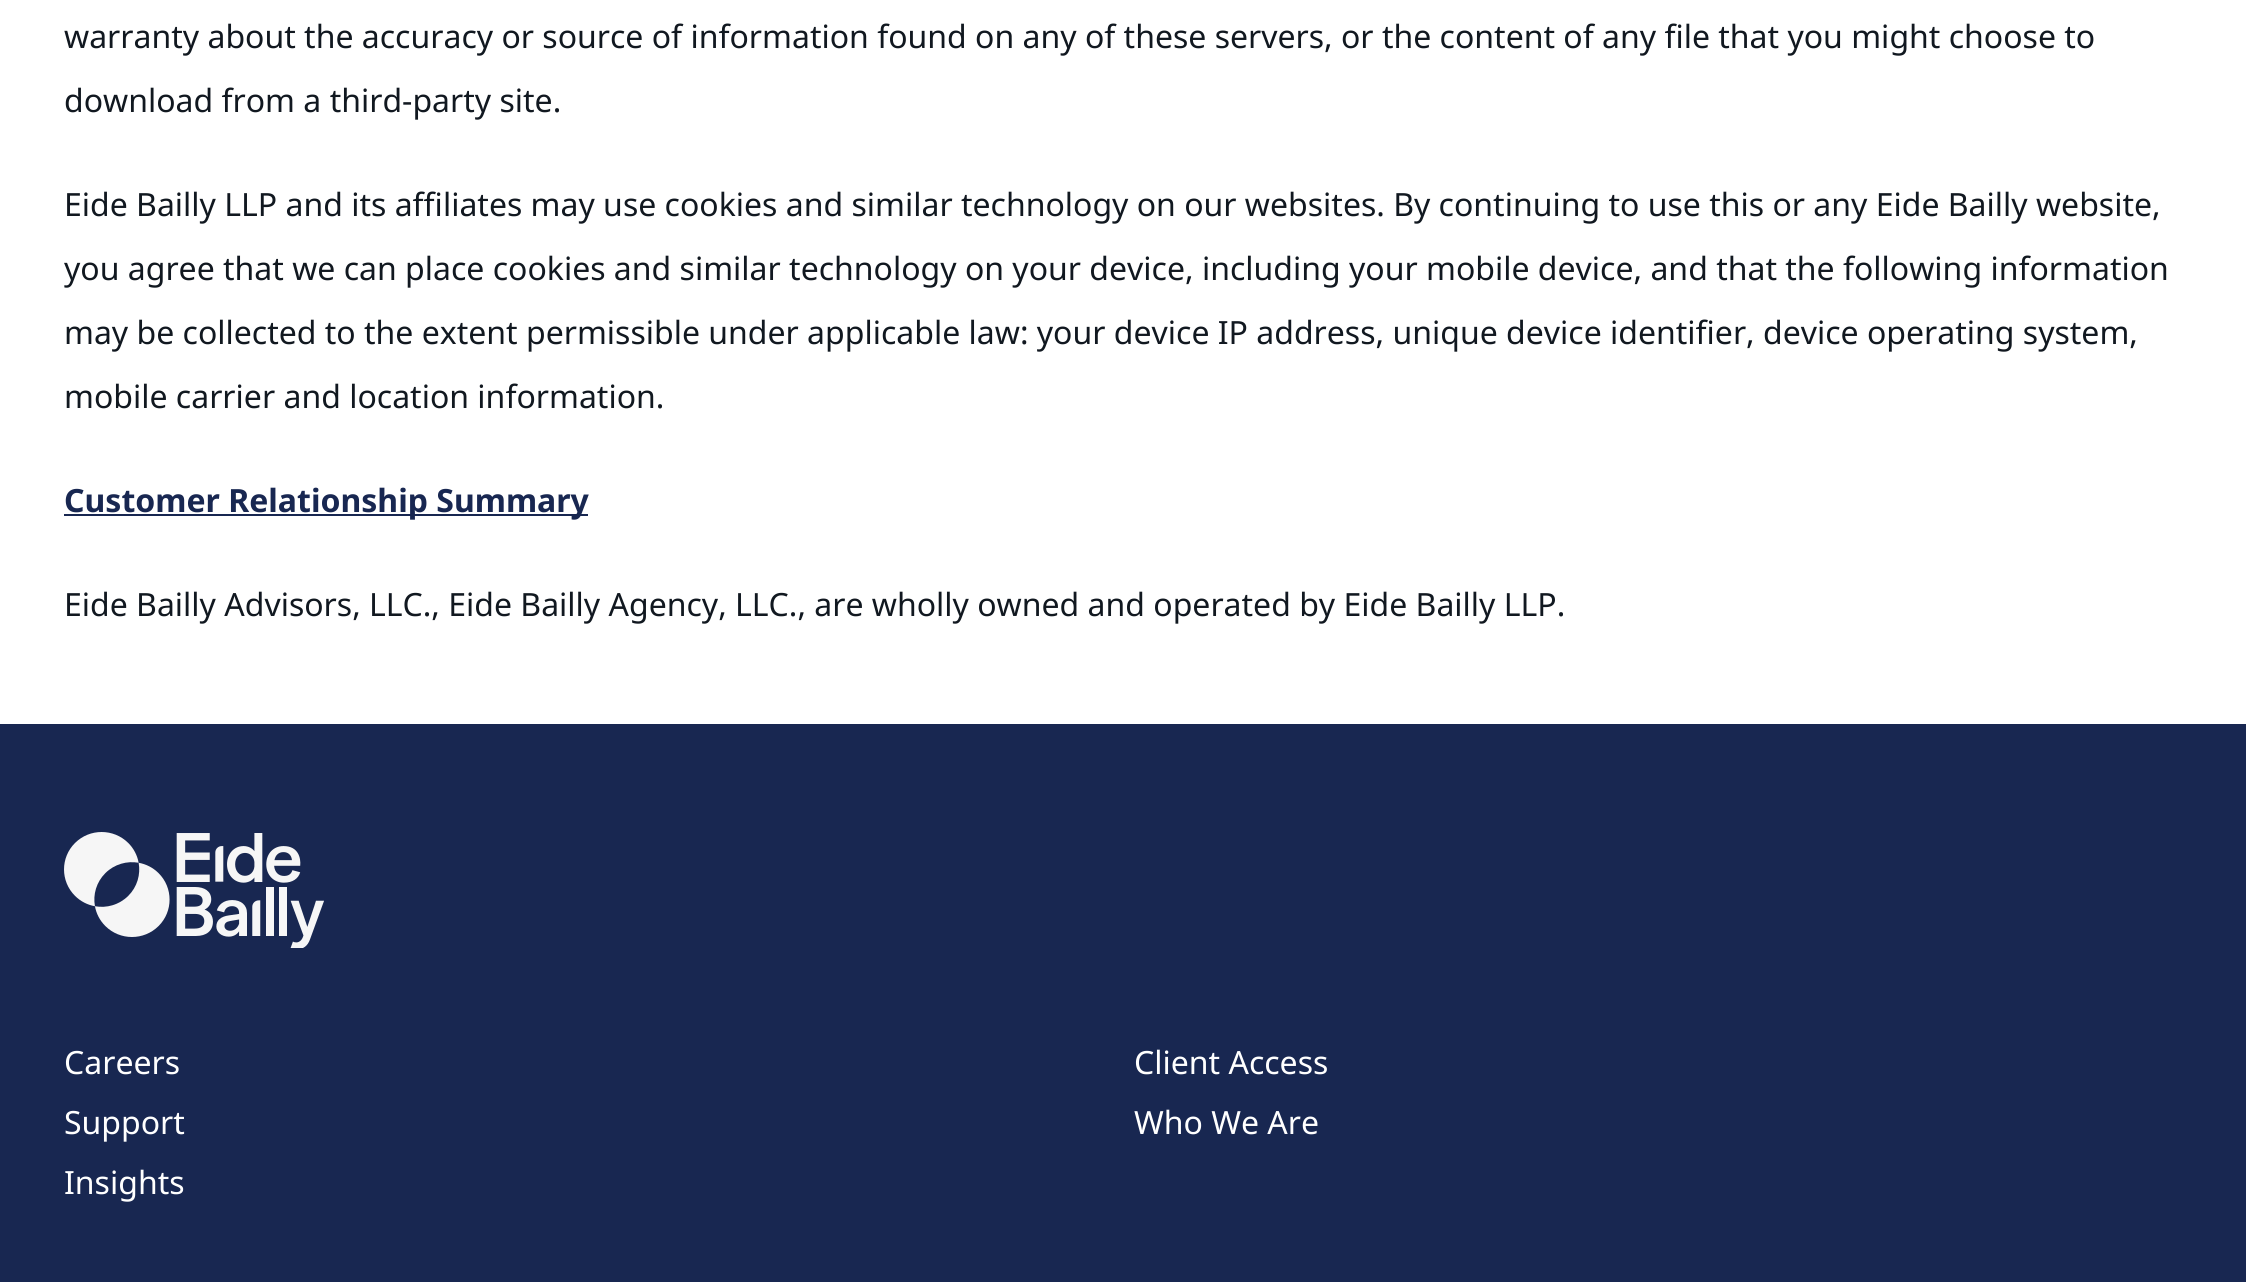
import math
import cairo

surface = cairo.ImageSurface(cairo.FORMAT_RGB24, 2246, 1282)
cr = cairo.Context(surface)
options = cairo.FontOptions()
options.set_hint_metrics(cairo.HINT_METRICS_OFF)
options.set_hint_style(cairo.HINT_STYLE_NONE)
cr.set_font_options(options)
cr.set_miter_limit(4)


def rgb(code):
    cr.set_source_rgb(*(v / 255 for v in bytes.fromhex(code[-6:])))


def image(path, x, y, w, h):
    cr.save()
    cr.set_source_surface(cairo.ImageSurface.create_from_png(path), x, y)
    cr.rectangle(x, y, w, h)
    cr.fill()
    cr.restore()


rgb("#ffffff")
cr.paint()
rgb("#182751")
cr.rectangle(64, 514, 524, 2)
cr.fill()
cr.rectangle(0, 724, 2246, 558)
cr.fill()
image("img/1.png", 64, 832, 260, 116)
cr.select_font_face("Noto Sans")
cr.set_font_size(32)
rgb("#111820")
for x, y, s in [
    (64, 48, "warranty about the accuracy or source of information found on any of these servers, or the content of any file that you might choose to"),
    (64, 112, "download from a third-party site."),
    (64, 216, "Eide Bailly LLP and its affiliates may use cookies and similar technology on our websites. By continuing to use this or any Eide Bailly website,"),
    (64, 280, "you agree that we can place cookies and similar technology on your device, including your mobile device, and that the following information"),
    (64, 344, "may be collected to the extent permissible under applicable law: your device IP address, unique device identifier, device operating system,"),
    (64, 408, "mobile carrier and location information."),
]:
    cr.move_to(x, y)
    cr.show_text(s)
cr.select_font_face("Noto Sans", cairo.FONT_SLANT_NORMAL, cairo.FONT_WEIGHT_BOLD)
rgb("#182751")
cr.move_to(64, 512)
cr.show_text("Customer Relationship Summary")
cr.select_font_face("Noto Sans")
rgb("#111820")
cr.move_to(64, 616)
cr.show_text("Eide Bailly Advisors, LLC., Eide Bailly Agency, LLC., are wholly owned and operated by Eide Bailly LLP.")
rgb("#ffffff")
for x, y, s in [
    (64, 1074, "Careers"),
    (1134, 1074, "Client Access"),
    (64, 1134, "Support"),
    (1134, 1134, "Who We Are"),
    (64, 1194, "Insights"),
]:
    cr.move_to(x, y)
    cr.show_text(s)
surface.write_to_png("page.png")
